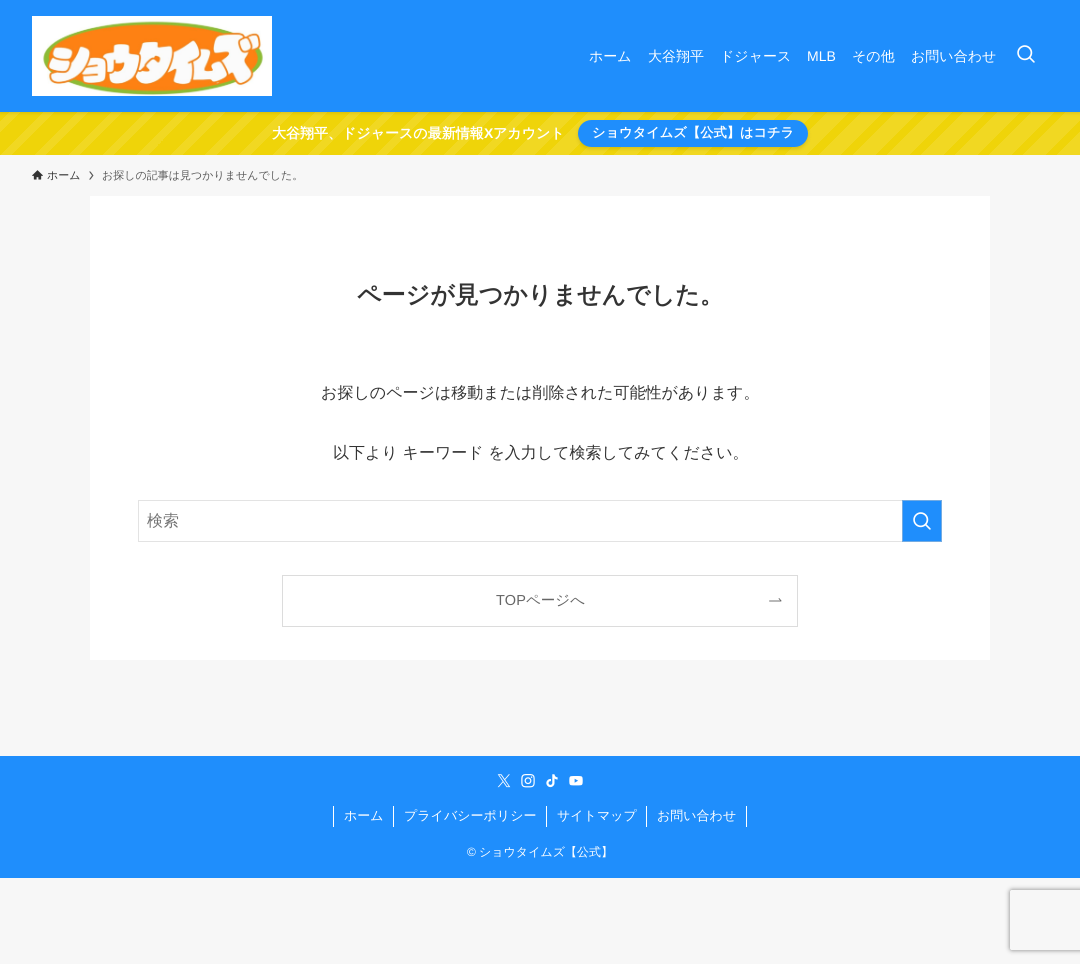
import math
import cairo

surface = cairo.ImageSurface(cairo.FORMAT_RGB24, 1080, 964)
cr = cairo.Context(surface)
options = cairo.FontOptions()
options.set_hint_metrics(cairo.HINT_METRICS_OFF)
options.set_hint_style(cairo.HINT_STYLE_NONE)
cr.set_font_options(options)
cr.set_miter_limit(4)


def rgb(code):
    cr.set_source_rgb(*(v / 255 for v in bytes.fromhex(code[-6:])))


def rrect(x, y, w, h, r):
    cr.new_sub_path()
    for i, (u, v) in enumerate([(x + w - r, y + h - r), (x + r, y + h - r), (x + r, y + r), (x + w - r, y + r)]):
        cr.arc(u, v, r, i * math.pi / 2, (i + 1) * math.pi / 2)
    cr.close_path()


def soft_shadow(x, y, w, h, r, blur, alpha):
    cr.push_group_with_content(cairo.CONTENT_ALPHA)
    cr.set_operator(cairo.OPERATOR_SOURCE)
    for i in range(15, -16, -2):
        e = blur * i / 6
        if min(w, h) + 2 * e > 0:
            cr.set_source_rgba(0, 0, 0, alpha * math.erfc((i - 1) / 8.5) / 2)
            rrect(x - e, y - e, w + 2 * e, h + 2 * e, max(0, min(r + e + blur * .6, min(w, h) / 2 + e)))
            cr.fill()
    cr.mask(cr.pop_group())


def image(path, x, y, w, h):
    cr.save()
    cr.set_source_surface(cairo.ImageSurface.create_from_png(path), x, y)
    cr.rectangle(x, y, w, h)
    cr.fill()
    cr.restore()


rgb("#f7f7f7")
cr.paint()
gradient = cairo.LinearGradient(821, 414, 252, -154)
gradient.add_color_stop_rgba(0, 0.945, 0.847, 0.133, 1)
gradient.add_color_stop_rgba(0.01, 0.945, 0.847, 0.133, 1)
gradient.add_color_stop_rgba(0.01, 0.937, 0.831, 0.035, 1)
gradient.add_color_stop_rgba(0.01, 0.945, 0.847, 0.133, 1)
gradient.add_color_stop_rgba(0.02, 0.945, 0.847, 0.133, 1)
gradient.add_color_stop_rgba(0.02, 0.937, 0.831, 0.035, 1)
gradient.add_color_stop_rgba(0.03, 0.937, 0.831, 0.035, 1)
gradient.add_color_stop_rgba(0.03, 0.945, 0.847, 0.133, 1)
gradient.add_color_stop_rgba(0.04, 0.945, 0.847, 0.133, 1)
gradient.add_color_stop_rgba(0.04, 0.937, 0.831, 0.035, 1)
gradient.add_color_stop_rgba(0.04, 0.945, 0.847, 0.133, 1)
gradient.add_color_stop_rgba(0.05, 0.945, 0.847, 0.133, 1)
gradient.add_color_stop_rgba(0.05, 0.937, 0.831, 0.035, 1)
gradient.add_color_stop_rgba(0.06, 0.937, 0.831, 0.035, 1)
gradient.add_color_stop_rgba(0.06, 0.945, 0.847, 0.133, 1)
gradient.add_color_stop_rgba(0.07, 0.945, 0.847, 0.133, 1)
gradient.add_color_stop_rgba(0.07, 0.937, 0.831, 0.035, 1)
gradient.add_color_stop_rgba(0.07, 0.945, 0.847, 0.133, 1)
gradient.add_color_stop_rgba(0.08, 0.945, 0.847, 0.133, 1)
gradient.add_color_stop_rgba(0.08, 0.937, 0.831, 0.035, 1)
gradient.add_color_stop_rgba(0.09, 0.937, 0.831, 0.035, 1)
gradient.add_color_stop_rgba(0.09, 0.945, 0.847, 0.133, 1)
gradient.add_color_stop_rgba(0.1, 0.945, 0.847, 0.133, 1)
gradient.add_color_stop_rgba(0.1, 0.937, 0.831, 0.035, 1)
gradient.add_color_stop_rgba(0.1, 0.945, 0.847, 0.133, 1)
gradient.add_color_stop_rgba(0.11, 0.945, 0.847, 0.133, 1)
gradient.add_color_stop_rgba(0.11, 0.937, 0.831, 0.035, 1)
gradient.add_color_stop_rgba(0.12, 0.937, 0.831, 0.035, 1)
gradient.add_color_stop_rgba(0.12, 0.945, 0.847, 0.133, 1)
gradient.add_color_stop_rgba(0.13, 0.945, 0.847, 0.133, 1)
gradient.add_color_stop_rgba(0.13, 0.937, 0.831, 0.035, 1)
gradient.add_color_stop_rgba(0.13, 0.945, 0.847, 0.133, 1)
gradient.add_color_stop_rgba(0.14, 0.945, 0.847, 0.133, 1)
gradient.add_color_stop_rgba(0.14, 0.937, 0.831, 0.035, 1)
gradient.add_color_stop_rgba(0.15, 0.937, 0.831, 0.035, 1)
gradient.add_color_stop_rgba(0.15, 0.945, 0.847, 0.133, 1)
gradient.add_color_stop_rgba(0.16, 0.945, 0.847, 0.133, 1)
gradient.add_color_stop_rgba(0.16, 0.937, 0.831, 0.035, 1)
gradient.add_color_stop_rgba(0.16, 0.945, 0.847, 0.133, 1)
gradient.add_color_stop_rgba(0.17, 0.945, 0.847, 0.133, 1)
gradient.add_color_stop_rgba(0.17, 0.937, 0.831, 0.035, 1)
gradient.add_color_stop_rgba(0.18, 0.937, 0.831, 0.035, 1)
gradient.add_color_stop_rgba(0.18, 0.945, 0.847, 0.133, 1)
gradient.add_color_stop_rgba(0.19, 0.945, 0.847, 0.133, 1)
gradient.add_color_stop_rgba(0.19, 0.937, 0.831, 0.035, 1)
gradient.add_color_stop_rgba(0.19, 0.945, 0.847, 0.133, 1)
gradient.add_color_stop_rgba(0.2, 0.945, 0.847, 0.133, 1)
gradient.add_color_stop_rgba(0.2, 0.937, 0.831, 0.035, 1)
gradient.add_color_stop_rgba(0.21, 0.937, 0.831, 0.035, 1)
gradient.add_color_stop_rgba(0.21, 0.945, 0.847, 0.133, 1)
gradient.add_color_stop_rgba(0.22, 0.945, 0.847, 0.133, 1)
gradient.add_color_stop_rgba(0.22, 0.937, 0.831, 0.035, 1)
gradient.add_color_stop_rgba(0.22, 0.945, 0.847, 0.133, 1)
gradient.add_color_stop_rgba(0.23, 0.945, 0.847, 0.133, 1)
gradient.add_color_stop_rgba(0.23, 0.937, 0.831, 0.035, 1)
gradient.add_color_stop_rgba(0.24, 0.937, 0.831, 0.035, 1)
gradient.add_color_stop_rgba(0.24, 0.945, 0.847, 0.133, 1)
gradient.add_color_stop_rgba(0.25, 0.945, 0.847, 0.133, 1)
gradient.add_color_stop_rgba(0.25, 0.937, 0.831, 0.035, 1)
gradient.add_color_stop_rgba(0.25, 0.945, 0.847, 0.133, 1)
gradient.add_color_stop_rgba(0.26, 0.945, 0.847, 0.133, 1)
gradient.add_color_stop_rgba(0.26, 0.937, 0.831, 0.035, 1)
gradient.add_color_stop_rgba(0.27, 0.937, 0.831, 0.035, 1)
gradient.add_color_stop_rgba(0.27, 0.945, 0.847, 0.133, 1)
gradient.add_color_stop_rgba(0.28, 0.945, 0.847, 0.133, 1)
gradient.add_color_stop_rgba(0.28, 0.937, 0.831, 0.035, 1)
gradient.add_color_stop_rgba(0.28, 0.945, 0.847, 0.133, 1)
gradient.add_color_stop_rgba(0.29, 0.945, 0.847, 0.133, 1)
gradient.add_color_stop_rgba(0.29, 0.937, 0.831, 0.035, 1)
gradient.add_color_stop_rgba(0.3, 0.937, 0.831, 0.035, 1)
gradient.add_color_stop_rgba(0.3, 0.945, 0.847, 0.133, 1)
gradient.add_color_stop_rgba(0.31, 0.945, 0.847, 0.133, 1)
gradient.add_color_stop_rgba(0.31, 0.937, 0.831, 0.035, 1)
gradient.add_color_stop_rgba(0.31, 0.945, 0.847, 0.133, 1)
gradient.add_color_stop_rgba(0.32, 0.945, 0.847, 0.133, 1)
gradient.add_color_stop_rgba(0.32, 0.937, 0.831, 0.035, 1)
gradient.add_color_stop_rgba(0.33, 0.937, 0.831, 0.035, 1)
gradient.add_color_stop_rgba(0.33, 0.945, 0.847, 0.133, 1)
gradient.add_color_stop_rgba(0.34, 0.945, 0.847, 0.133, 1)
gradient.add_color_stop_rgba(0.34, 0.937, 0.831, 0.035, 1)
gradient.add_color_stop_rgba(0.34, 0.945, 0.847, 0.133, 1)
gradient.add_color_stop_rgba(0.35, 0.945, 0.847, 0.133, 1)
gradient.add_color_stop_rgba(0.35, 0.937, 0.831, 0.035, 1)
gradient.add_color_stop_rgba(0.36, 0.937, 0.831, 0.035, 1)
gradient.add_color_stop_rgba(0.36, 0.945, 0.847, 0.133, 1)
gradient.add_color_stop_rgba(0.37, 0.945, 0.847, 0.133, 1)
gradient.add_color_stop_rgba(0.37, 0.937, 0.831, 0.035, 1)
gradient.add_color_stop_rgba(0.37, 0.945, 0.847, 0.133, 1)
gradient.add_color_stop_rgba(0.38, 0.945, 0.847, 0.133, 1)
gradient.add_color_stop_rgba(0.38, 0.937, 0.831, 0.035, 1)
gradient.add_color_stop_rgba(0.39, 0.937, 0.831, 0.035, 1)
gradient.add_color_stop_rgba(0.39, 0.945, 0.847, 0.133, 1)
gradient.add_color_stop_rgba(0.4, 0.945, 0.847, 0.133, 1)
gradient.add_color_stop_rgba(0.4, 0.937, 0.831, 0.035, 1)
gradient.add_color_stop_rgba(0.4, 0.945, 0.847, 0.133, 1)
gradient.add_color_stop_rgba(0.41, 0.945, 0.847, 0.133, 1)
gradient.add_color_stop_rgba(0.41, 0.937, 0.831, 0.035, 1)
gradient.add_color_stop_rgba(0.42, 0.937, 0.831, 0.035, 1)
gradient.add_color_stop_rgba(0.42, 0.945, 0.847, 0.133, 1)
gradient.add_color_stop_rgba(0.43, 0.945, 0.847, 0.133, 1)
gradient.add_color_stop_rgba(0.43, 0.937, 0.831, 0.035, 1)
gradient.add_color_stop_rgba(0.43, 0.945, 0.847, 0.133, 1)
gradient.add_color_stop_rgba(0.44, 0.945, 0.847, 0.133, 1)
gradient.add_color_stop_rgba(0.44, 0.937, 0.831, 0.035, 1)
gradient.add_color_stop_rgba(0.45, 0.937, 0.831, 0.035, 1)
gradient.add_color_stop_rgba(0.45, 0.945, 0.847, 0.133, 1)
gradient.add_color_stop_rgba(0.46, 0.945, 0.847, 0.133, 1)
gradient.add_color_stop_rgba(0.46, 0.937, 0.831, 0.035, 1)
gradient.add_color_stop_rgba(0.46, 0.945, 0.847, 0.133, 1)
gradient.add_color_stop_rgba(0.47, 0.945, 0.847, 0.133, 1)
gradient.add_color_stop_rgba(0.47, 0.937, 0.831, 0.035, 1)
gradient.add_color_stop_rgba(0.48, 0.937, 0.831, 0.035, 1)
gradient.add_color_stop_rgba(0.48, 0.945, 0.847, 0.133, 1)
gradient.add_color_stop_rgba(0.49, 0.945, 0.847, 0.133, 1)
gradient.add_color_stop_rgba(0.49, 0.937, 0.831, 0.035, 1)
gradient.add_color_stop_rgba(0.49, 0.945, 0.847, 0.133, 1)
gradient.add_color_stop_rgba(0.5, 0.945, 0.847, 0.133, 1)
gradient.add_color_stop_rgba(0.5, 0.937, 0.831, 0.035, 1)
gradient.add_color_stop_rgba(0.51, 0.937, 0.831, 0.035, 1)
gradient.add_color_stop_rgba(0.51, 0.945, 0.847, 0.133, 1)
gradient.add_color_stop_rgba(0.51, 0.937, 0.831, 0.035, 1)
gradient.add_color_stop_rgba(0.52, 0.937, 0.831, 0.035, 1)
gradient.add_color_stop_rgba(0.52, 0.945, 0.847, 0.133, 1)
gradient.add_color_stop_rgba(0.53, 0.945, 0.847, 0.133, 1)
gradient.add_color_stop_rgba(0.53, 0.937, 0.831, 0.035, 1)
gradient.add_color_stop_rgba(0.54, 0.937, 0.831, 0.035, 1)
gradient.add_color_stop_rgba(0.54, 0.945, 0.847, 0.133, 1)
gradient.add_color_stop_rgba(0.54, 0.937, 0.831, 0.035, 1)
gradient.add_color_stop_rgba(0.55, 0.937, 0.831, 0.035, 1)
gradient.add_color_stop_rgba(0.55, 0.945, 0.847, 0.133, 1)
gradient.add_color_stop_rgba(0.56, 0.945, 0.847, 0.133, 1)
gradient.add_color_stop_rgba(0.56, 0.937, 0.831, 0.035, 1)
gradient.add_color_stop_rgba(0.57, 0.937, 0.831, 0.035, 1)
gradient.add_color_stop_rgba(0.57, 0.945, 0.847, 0.133, 1)
gradient.add_color_stop_rgba(0.57, 0.937, 0.831, 0.035, 1)
gradient.add_color_stop_rgba(0.58, 0.937, 0.831, 0.035, 1)
gradient.add_color_stop_rgba(0.58, 0.945, 0.847, 0.133, 1)
gradient.add_color_stop_rgba(0.59, 0.945, 0.847, 0.133, 1)
gradient.add_color_stop_rgba(0.59, 0.937, 0.831, 0.035, 1)
gradient.add_color_stop_rgba(0.6, 0.937, 0.831, 0.035, 1)
gradient.add_color_stop_rgba(0.6, 0.945, 0.847, 0.133, 1)
gradient.add_color_stop_rgba(0.6, 0.937, 0.831, 0.035, 1)
gradient.add_color_stop_rgba(0.61, 0.937, 0.831, 0.035, 1)
gradient.add_color_stop_rgba(0.61, 0.945, 0.847, 0.133, 1)
gradient.add_color_stop_rgba(0.62, 0.945, 0.847, 0.133, 1)
gradient.add_color_stop_rgba(0.62, 0.937, 0.831, 0.035, 1)
gradient.add_color_stop_rgba(0.63, 0.937, 0.831, 0.035, 1)
gradient.add_color_stop_rgba(0.63, 0.945, 0.847, 0.133, 1)
gradient.add_color_stop_rgba(0.63, 0.937, 0.831, 0.035, 1)
gradient.add_color_stop_rgba(0.64, 0.937, 0.831, 0.035, 1)
gradient.add_color_stop_rgba(0.64, 0.945, 0.847, 0.133, 1)
gradient.add_color_stop_rgba(0.65, 0.945, 0.847, 0.133, 1)
gradient.add_color_stop_rgba(0.65, 0.937, 0.831, 0.035, 1)
gradient.add_color_stop_rgba(0.66, 0.937, 0.831, 0.035, 1)
gradient.add_color_stop_rgba(0.66, 0.945, 0.847, 0.133, 1)
gradient.add_color_stop_rgba(0.66, 0.937, 0.831, 0.035, 1)
gradient.add_color_stop_rgba(0.67, 0.937, 0.831, 0.035, 1)
gradient.add_color_stop_rgba(0.67, 0.945, 0.847, 0.133, 1)
gradient.add_color_stop_rgba(0.68, 0.945, 0.847, 0.133, 1)
gradient.add_color_stop_rgba(0.68, 0.937, 0.831, 0.035, 1)
gradient.add_color_stop_rgba(0.69, 0.937, 0.831, 0.035, 1)
gradient.add_color_stop_rgba(0.69, 0.945, 0.847, 0.133, 1)
gradient.add_color_stop_rgba(0.69, 0.937, 0.831, 0.035, 1)
gradient.add_color_stop_rgba(0.7, 0.937, 0.831, 0.035, 1)
gradient.add_color_stop_rgba(0.7, 0.945, 0.847, 0.133, 1)
gradient.add_color_stop_rgba(0.71, 0.945, 0.847, 0.133, 1)
gradient.add_color_stop_rgba(0.71, 0.937, 0.831, 0.035, 1)
gradient.add_color_stop_rgba(0.72, 0.937, 0.831, 0.035, 1)
gradient.add_color_stop_rgba(0.72, 0.945, 0.847, 0.133, 1)
gradient.add_color_stop_rgba(0.72, 0.937, 0.831, 0.035, 1)
gradient.add_color_stop_rgba(0.73, 0.937, 0.831, 0.035, 1)
gradient.add_color_stop_rgba(0.73, 0.945, 0.847, 0.133, 1)
gradient.add_color_stop_rgba(0.74, 0.945, 0.847, 0.133, 1)
gradient.add_color_stop_rgba(0.74, 0.937, 0.831, 0.035, 1)
gradient.add_color_stop_rgba(0.75, 0.937, 0.831, 0.035, 1)
gradient.add_color_stop_rgba(0.75, 0.945, 0.847, 0.133, 1)
gradient.add_color_stop_rgba(0.75, 0.937, 0.831, 0.035, 1)
gradient.add_color_stop_rgba(0.76, 0.937, 0.831, 0.035, 1)
gradient.add_color_stop_rgba(0.76, 0.945, 0.847, 0.133, 1)
gradient.add_color_stop_rgba(0.77, 0.945, 0.847, 0.133, 1)
gradient.add_color_stop_rgba(0.77, 0.937, 0.831, 0.035, 1)
gradient.add_color_stop_rgba(0.78, 0.937, 0.831, 0.035, 1)
gradient.add_color_stop_rgba(0.78, 0.945, 0.847, 0.133, 1)
gradient.add_color_stop_rgba(0.78, 0.937, 0.831, 0.035, 1)
gradient.add_color_stop_rgba(0.79, 0.937, 0.831, 0.035, 1)
gradient.add_color_stop_rgba(0.79, 0.945, 0.847, 0.133, 1)
gradient.add_color_stop_rgba(0.8, 0.945, 0.847, 0.133, 1)
gradient.add_color_stop_rgba(0.8, 0.937, 0.831, 0.035, 1)
gradient.add_color_stop_rgba(0.81, 0.937, 0.831, 0.035, 1)
gradient.add_color_stop_rgba(0.81, 0.945, 0.847, 0.133, 1)
gradient.add_color_stop_rgba(0.81, 0.937, 0.831, 0.035, 1)
gradient.add_color_stop_rgba(0.82, 0.937, 0.831, 0.035, 1)
gradient.add_color_stop_rgba(0.82, 0.945, 0.847, 0.133, 1)
gradient.add_color_stop_rgba(0.83, 0.945, 0.847, 0.133, 1)
gradient.add_color_stop_rgba(0.83, 0.937, 0.831, 0.035, 1)
gradient.add_color_stop_rgba(0.84, 0.937, 0.831, 0.035, 1)
gradient.add_color_stop_rgba(0.84, 0.945, 0.847, 0.133, 1)
gradient.add_color_stop_rgba(0.84, 0.937, 0.831, 0.035, 1)
gradient.add_color_stop_rgba(0.85, 0.937, 0.831, 0.035, 1)
gradient.add_color_stop_rgba(0.85, 0.945, 0.847, 0.133, 1)
gradient.add_color_stop_rgba(0.86, 0.945, 0.847, 0.133, 1)
gradient.add_color_stop_rgba(0.86, 0.937, 0.831, 0.035, 1)
gradient.add_color_stop_rgba(0.87, 0.937, 0.831, 0.035, 1)
gradient.add_color_stop_rgba(0.87, 0.945, 0.847, 0.133, 1)
gradient.add_color_stop_rgba(0.87, 0.937, 0.831, 0.035, 1)
gradient.add_color_stop_rgba(0.88, 0.937, 0.831, 0.035, 1)
gradient.add_color_stop_rgba(0.88, 0.945, 0.847, 0.133, 1)
gradient.add_color_stop_rgba(0.89, 0.945, 0.847, 0.133, 1)
gradient.add_color_stop_rgba(0.89, 0.937, 0.831, 0.035, 1)
gradient.add_color_stop_rgba(0.9, 0.937, 0.831, 0.035, 1)
gradient.add_color_stop_rgba(0.9, 0.945, 0.847, 0.133, 1)
gradient.add_color_stop_rgba(0.9, 0.937, 0.831, 0.035, 1)
gradient.add_color_stop_rgba(0.91, 0.937, 0.831, 0.035, 1)
gradient.add_color_stop_rgba(0.91, 0.945, 0.847, 0.133, 1)
gradient.add_color_stop_rgba(0.92, 0.945, 0.847, 0.133, 1)
gradient.add_color_stop_rgba(0.92, 0.937, 0.831, 0.035, 1)
gradient.add_color_stop_rgba(0.93, 0.937, 0.831, 0.035, 1)
gradient.add_color_stop_rgba(0.93, 0.945, 0.847, 0.133, 1)
gradient.add_color_stop_rgba(0.93, 0.937, 0.831, 0.035, 1)
gradient.add_color_stop_rgba(0.94, 0.937, 0.831, 0.035, 1)
gradient.add_color_stop_rgba(0.94, 0.945, 0.847, 0.133, 1)
gradient.add_color_stop_rgba(0.95, 0.945, 0.847, 0.133, 1)
gradient.add_color_stop_rgba(0.95, 0.937, 0.831, 0.035, 1)
gradient.add_color_stop_rgba(0.96, 0.937, 0.831, 0.035, 1)
gradient.add_color_stop_rgba(0.96, 0.945, 0.847, 0.133, 1)
gradient.add_color_stop_rgba(0.96, 0.937, 0.831, 0.035, 1)
gradient.add_color_stop_rgba(0.97, 0.937, 0.831, 0.035, 1)
gradient.add_color_stop_rgba(0.97, 0.945, 0.847, 0.133, 1)
gradient.add_color_stop_rgba(0.98, 0.945, 0.847, 0.133, 1)
gradient.add_color_stop_rgba(0.98, 0.937, 0.831, 0.035, 1)
gradient.add_color_stop_rgba(0.99, 0.937, 0.831, 0.035, 1)
gradient.add_color_stop_rgba(0.99, 0.945, 0.847, 0.133, 1)
gradient.add_color_stop_rgba(0.99, 0.937, 0.831, 0.035, 1)
gradient.add_color_stop_rgba(1, 0.937, 0.831, 0.035, 1)
cr.set_source(gradient)
cr.rectangle(0, 112, 1080, 43)
cr.fill()
rgb("#000000")
soft_shadow(0, 1, 1080, 112, 0, 2, 0.12)
rgb("#1f8efc")
cr.rectangle(0, 0, 1080, 112)
cr.fill()
image("img/1.png", 32, 16, 240, 80)
image("img/2.png", 1017, 45, 18, 18)
rgb("#000000")
soft_shadow(578, 122, 230, 27, 13.5, 2, 0.12)
rgb("#1f8efc")
rrect(578, 120, 230, 27, 13.5)
cr.fill()
image("img/3.png", 32, 170, 11, 10)
rgb("#5a5a5a")
cr.new_path()
cr.move_to(90.5, 171.5)
cr.line_to(89, 171.5)
cr.line_to(92, 175.5)
cr.line_to(89, 179.5)
cr.line_to(90.5, 179.5)
cr.line_to(93.5, 175.5)
cr.close_path()
cr.fill()
rgb("#ffffff")
cr.rectangle(90, 196, 900, 464)
cr.fill()
cr.rectangle(138.5, 500.5, 803, 41)
rgb("#e3e3e3")
cr.set_line_width(1)
cr.stroke()
rgb("#1f8efc")
cr.rectangle(902.5, 500.5, 39, 41)
cr.fill_preserve()
rgb("#73abe2")
cr.stroke()
image("img/2.png", 913, 512, 18, 18)
cr.rectangle(282.5, 575.5, 515, 51)
rgb("#dcdcdc")
cr.stroke()
image("img/4.png", 769, 598, 13, 4)
rgb("#1f8efc")
cr.rectangle(0, 756, 1080, 122)
cr.fill()
image("img/5.png", 497, 774, 14, 14)
image("img/6.png", 521, 774, 14, 14)
image("img/7.png", 546, 774, 12, 14)
image("img/8.png", 569, 776, 14, 10)
for x, y, w, h, color in [
    (393, 806, 1, 21, "#ffffff"),
    (333, 806, 1, 21, "#ffffff"),
    (546, 806, 1, 21, "#ffffff"),
    (646, 806, 1, 21, "#ffffff"),
    (746, 806, 1, 21, "#ffffff"),
]:
    rgb(color)
    cr.rectangle(x, y, w, h)
    cr.fill()
cr.save()
cr.set_fill_rule(cairo.FILL_RULE_EVEN_ODD)
cr.new_path()
cr.move_to(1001, 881)
cr.line_to(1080, 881)
cr.line_to(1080, 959)
cr.line_to(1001, 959)
cr.close_path()
cr.move_to(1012, 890)
cr.line_to(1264, 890)
cr.curve_to(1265, 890, 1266, 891, 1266, 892)
cr.line_to(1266, 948)
cr.curve_to(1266, 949, 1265, 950, 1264, 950)
cr.line_to(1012, 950)
cr.curve_to(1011, 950, 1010, 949, 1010, 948)
cr.line_to(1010, 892)
cr.curve_to(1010, 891, 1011, 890, 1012, 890)
cr.close_path()
cr.clip()
rgb("#808080")
soft_shadow(1010, 890, 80, 60, 2, 2.5, 1)
cr.restore()
cr.select_font_face("WenQuanYi Zen Hei Medium")
cr.set_font_size(14)
for x, y, s in [
    (589, 61, "ホーム"),
    (648, 61, "大谷翔平"),
    (720, 61, "ドジャース"),
]:
    cr.move_to(x, y)
    cr.show_text(s)
cr.select_font_face("Liberation Sans")
cr.move_to(807, 61)
cr.show_text("MLB")
cr.select_font_face("WenQuanYi Zen Hei Medium")
cr.move_to(852, 61)
cr.show_text("その他")
cr.move_to(911, 61)
cr.show_text("お問い合わせ")
cr.select_font_face("WenQuanYi Zen Hei", cairo.FONT_SLANT_NORMAL, cairo.FONT_WEIGHT_BOLD)
cr.move_to(272, 138)
cr.show_text("大谷翔平、ドジャースの最新情報")
cr.select_font_face("Liberation Sans", cairo.FONT_SLANT_NORMAL, cairo.FONT_WEIGHT_BOLD)
cr.move_to(484, 138)
cr.show_text("X")
cr.select_font_face("WenQuanYi Zen Hei", cairo.FONT_SLANT_NORMAL, cairo.FONT_WEIGHT_BOLD)
cr.move_to(493, 138)
cr.show_text("アカウント")
cr.set_font_size(13.25)
cr.move_to(592, 137)
cr.show_text("ショウタイムズ【公式】はコチラ")
cr.select_font_face("WenQuanYi Zen Hei Medium")
cr.set_font_size(11)
rgb("#333333")
cr.move_to(47, 179)
cr.show_text("ホーム")
rgb("#5a5a5a")
cr.move_to(102, 179)
cr.show_text("お探しの記事は見つかりませんでした。")
cr.select_font_face("WenQuanYi Zen Hei", cairo.FONT_SLANT_NORMAL, cairo.FONT_WEIGHT_BOLD)
cr.set_font_size(24)
rgb("#333333")
cr.move_to(357, 303)
cr.show_text("ページが見つかりませんでした。")
cr.select_font_face("WenQuanYi Zen Hei Medium")
cr.set_font_size(16)
cr.move_to(321, 398)
cr.show_text("お探しのページは移動または削除された可能性があります。")
cr.move_to(333, 458)
cr.show_text("以下より キーワード を入力して検索してみてください。")
rgb("#757575")
cr.move_to(147, 526)
cr.show_text("検索")
cr.select_font_face("Liberation Sans")
cr.set_font_size(14.5)
rgb("#666666")
cr.move_to(496, 605)
cr.show_text("TOP")
cr.select_font_face("WenQuanYi Zen Hei Medium")
cr.move_to(526, 605)
cr.show_text("ページへ")
cr.set_font_size(13)
rgb("#ffffff")
for x, y, s in [
    (344, 820, "ホーム"),
    (404, 820, "プライバシーポリシー"),
    (557, 820, "サイトマップ"),
    (657, 820, "お問い合わせ"),
]:
    cr.move_to(x, y)
    cr.show_text(s)
cr.select_font_face("Liberation Sans")
cr.set_font_size(12)
cr.move_to(467, 856)
cr.show_text("©")
cr.select_font_face("WenQuanYi Zen Hei Medium")
cr.move_to(479, 856)
cr.show_text("ショウタイムズ【公式】")
surface.write_to_png("page.png")
